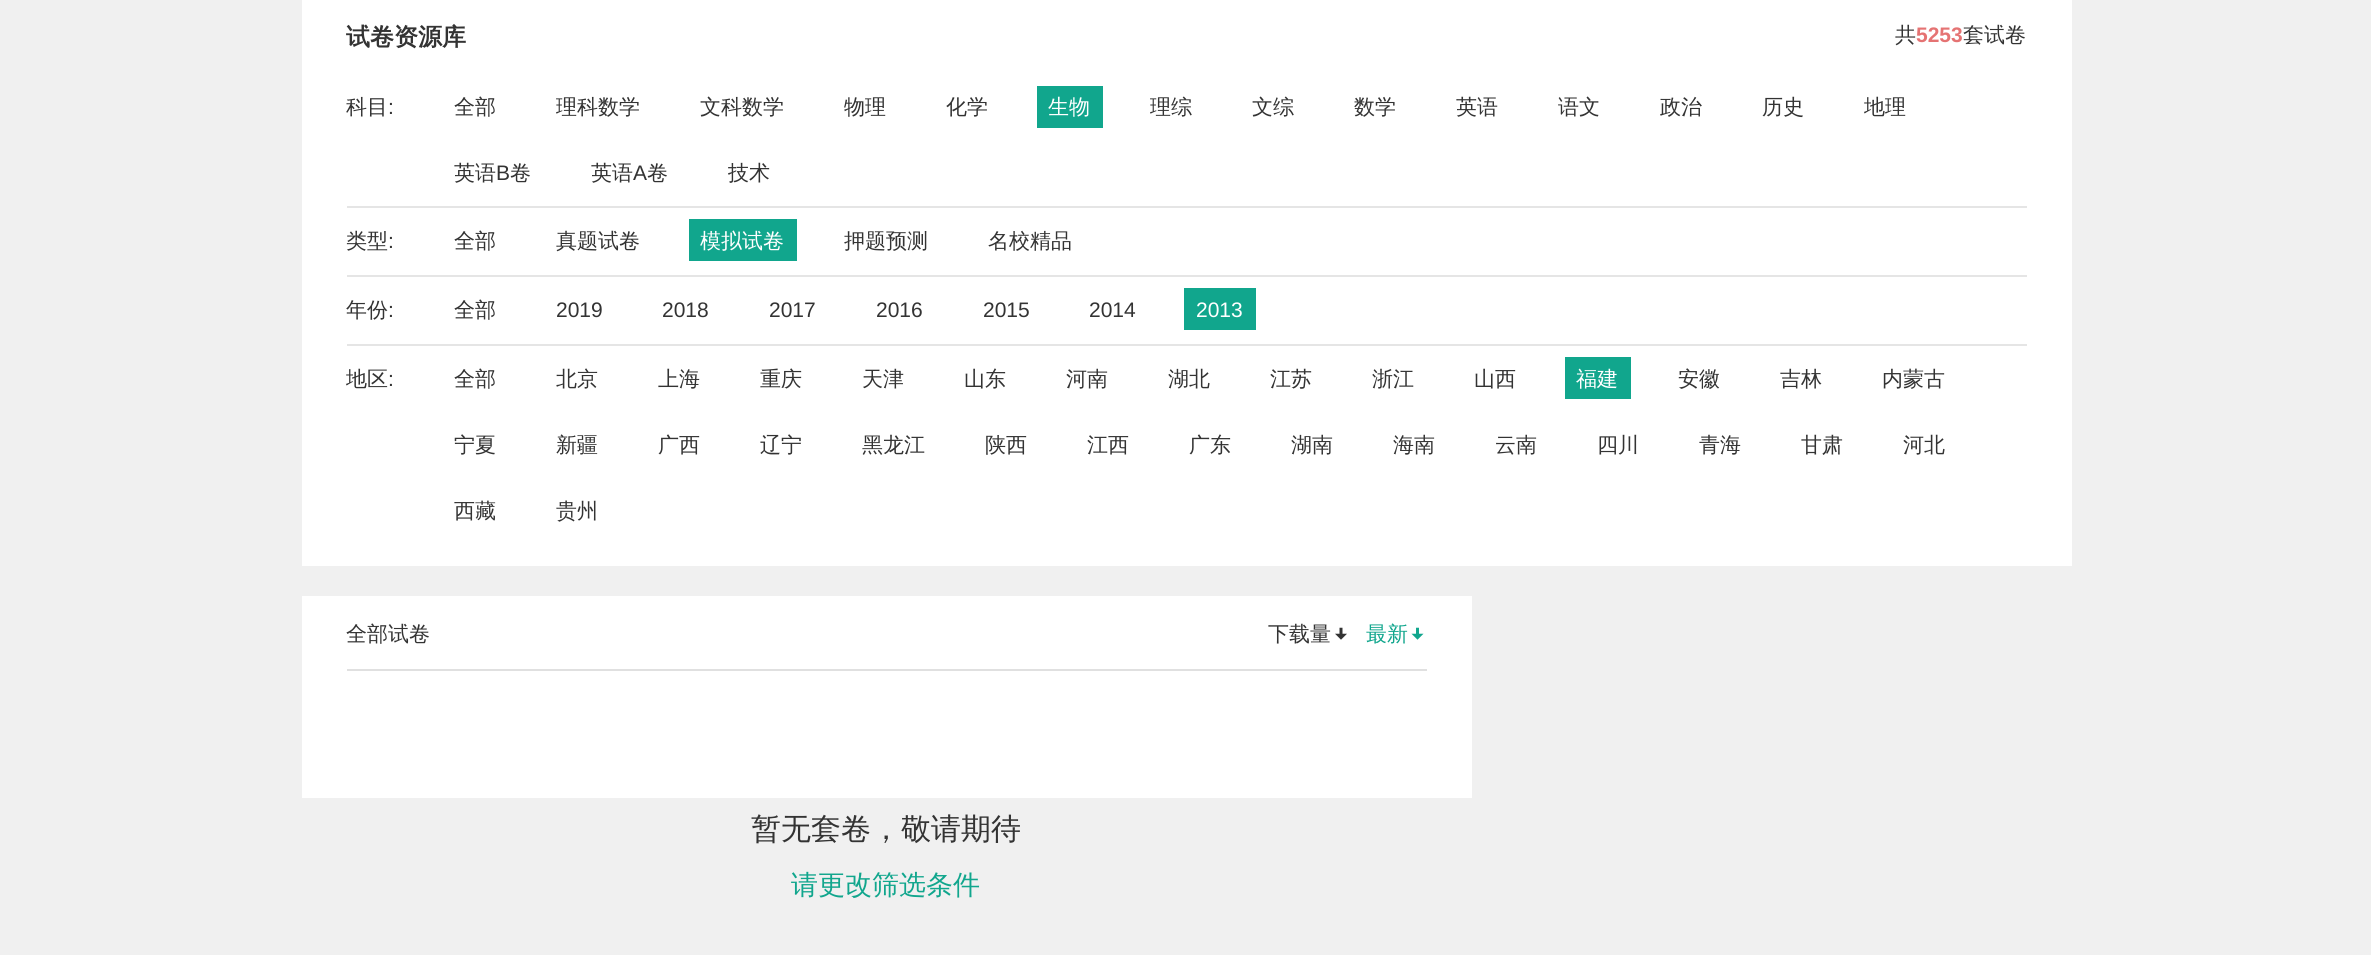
import math
import cairo

surface = cairo.ImageSurface(cairo.FORMAT_RGB24, 2371, 955)
cr = cairo.Context(surface)
options = cairo.FontOptions()
options.set_hint_metrics(cairo.HINT_METRICS_OFF)
options.set_hint_style(cairo.HINT_STYLE_NONE)
cr.set_font_options(options)
cr.set_miter_limit(4)


def rgb(code):
    cr.set_source_rgb(*(v / 255 for v in bytes.fromhex(code[-6:])))


def image(path, x, y, w, h):
    cr.save()
    cr.set_source_surface(cairo.ImageSurface.create_from_png(path), x, y)
    cr.rectangle(x, y, w, h)
    cr.fill()
    cr.restore()


rgb("#f0f0f0")
cr.paint()
for x, y, w, h, color in [
    (302, 0, 1770, 566, "#ffffff"),
    (347, 206, 1680, 2, "#e5e5e5"),
    (1037, 86, 66, 42, "#11a68d"),
    (347, 275, 1680, 2, "#e5e5e5"),
    (689, 219, 108, 42, "#11a68d"),
    (347, 344, 1680, 2, "#e5e5e5"),
    (1184, 288, 72, 42, "#11a68d"),
    (1565, 357, 66, 42, "#11a68d"),
    (302, 596, 1170, 202, "#ffffff"),
    (347, 669, 1080, 2, "#e0e0e0"),
]:
    rgb(color)
    cr.rectangle(x, y, w, h)
    cr.fill()
image("img/1.png", 1335, 627, 12, 13)
image("img/2.png", 1411, 627, 13, 13)
cr.select_font_face("WenQuanYi Zen Hei", cairo.FONT_SLANT_NORMAL, cairo.FONT_WEIGHT_BOLD)
cr.set_font_size(24)
rgb("#333333")
cr.move_to(346, 45)
cr.show_text("试卷资源库")
cr.select_font_face("WenQuanYi Zen Hei Medium")
cr.set_font_size(21)
cr.move_to(1895, 42)
cr.show_text("共")
cr.select_font_face("Liberation Sans", cairo.FONT_SLANT_NORMAL, cairo.FONT_WEIGHT_BOLD)
rgb("#e57373")
cr.move_to(1916, 42)
cr.show_text("5253")
cr.select_font_face("WenQuanYi Zen Hei Medium")
rgb("#333333")
cr.move_to(1963, 42)
cr.show_text("套试卷")
cr.move_to(346, 114)
cr.show_text("科目")
cr.select_font_face("Liberation Sans")
cr.move_to(388, 114)
cr.show_text(":")
cr.select_font_face("WenQuanYi Zen Hei Medium")
for x, y, s in [
    (454, 114, "全部"),
    (556, 114, "理科数学"),
    (700, 114, "文科数学"),
    (844, 114, "物理"),
    (946, 114, "化学"),
]:
    cr.move_to(x, y)
    cr.show_text(s)
rgb("#ffffff")
cr.move_to(1048, 114)
cr.show_text("生物")
rgb("#333333")
for x, y, s in [
    (1150, 114, "理综"),
    (1252, 114, "文综"),
    (1354, 114, "数学"),
    (1456, 114, "英语"),
    (1558, 114, "语文"),
    (1660, 114, "政治"),
    (1762, 114, "历史"),
    (1864, 114, "地理"),
    (454, 180, "英语"),
]:
    cr.move_to(x, y)
    cr.show_text(s)
cr.select_font_face("Liberation Sans")
cr.move_to(496, 180)
cr.show_text("B")
cr.select_font_face("WenQuanYi Zen Hei Medium")
cr.move_to(510, 180)
cr.show_text("卷")
cr.move_to(591, 180)
cr.show_text("英语")
cr.select_font_face("Liberation Sans")
cr.move_to(633, 180)
cr.show_text("A")
cr.select_font_face("WenQuanYi Zen Hei Medium")
for x, y, s in [
    (647, 180, "卷"),
    (728, 180, "技术"),
    (346, 248, "类型"),
]:
    cr.move_to(x, y)
    cr.show_text(s)
cr.select_font_face("Liberation Sans")
cr.move_to(388, 248)
cr.show_text(":")
cr.select_font_face("WenQuanYi Zen Hei Medium")
cr.move_to(454, 248)
cr.show_text("全部")
cr.move_to(556, 248)
cr.show_text("真题试卷")
rgb("#ffffff")
cr.move_to(700, 248)
cr.show_text("模拟试卷")
rgb("#333333")
for x, y, s in [
    (844, 248, "押题预测"),
    (988, 248, "名校精品"),
    (346, 317, "年份"),
]:
    cr.move_to(x, y)
    cr.show_text(s)
cr.select_font_face("Liberation Sans")
cr.move_to(388, 317)
cr.show_text(":")
cr.select_font_face("WenQuanYi Zen Hei Medium")
cr.move_to(454, 317)
cr.show_text("全部")
cr.select_font_face("Liberation Sans")
for x, y, s in [
    (556, 317, "2019"),
    (662, 317, "2018"),
    (769, 317, "2017"),
    (876, 317, "2016"),
    (983, 317, "2015"),
    (1089, 317, "2014"),
]:
    cr.move_to(x, y)
    cr.show_text(s)
rgb("#ffffff")
cr.move_to(1196, 317)
cr.show_text("2013")
cr.select_font_face("WenQuanYi Zen Hei Medium")
rgb("#333333")
cr.move_to(346, 386)
cr.show_text("地区")
cr.select_font_face("Liberation Sans")
cr.move_to(388, 386)
cr.show_text(":")
cr.select_font_face("WenQuanYi Zen Hei Medium")
for x, y, s in [
    (454, 386, "全部"),
    (556, 386, "北京"),
    (658, 386, "上海"),
    (760, 386, "重庆"),
    (862, 386, "天津"),
    (964, 386, "山东"),
    (1066, 386, "河南"),
    (1168, 386, "湖北"),
    (1270, 386, "江苏"),
    (1372, 386, "浙江"),
    (1474, 386, "山西"),
]:
    cr.move_to(x, y)
    cr.show_text(s)
rgb("#ffffff")
cr.move_to(1576, 386)
cr.show_text("福建")
rgb("#333333")
for x, y, s in [
    (1678, 386, "安徽"),
    (1780, 386, "吉林"),
    (1882, 386, "内蒙古"),
    (454, 452, "宁夏"),
    (556, 452, "新疆"),
    (658, 452, "广西"),
    (760, 452, "辽宁"),
    (862, 452, "黑龙江"),
    (985, 452, "陕西"),
    (1087, 452, "江西"),
    (1189, 452, "广东"),
    (1291, 452, "湖南"),
    (1393, 452, "海南"),
    (1495, 452, "云南"),
    (1597, 452, "四川"),
    (1699, 452, "青海"),
    (1801, 452, "甘肃"),
    (1903, 452, "河北"),
    (454, 518, "西藏"),
    (556, 518, "贵州"),
    (346, 641, "全部试卷"),
    (1268, 641, "下载量"),
]:
    cr.move_to(x, y)
    cr.show_text(s)
rgb("#11a68d")
cr.move_to(1366, 641)
cr.show_text("最新")
cr.set_font_size(30)
rgb("#333333")
cr.move_to(751, 839)
cr.show_text("暂无套卷，敬请期待")
cr.set_font_size(27)
rgb("#11a68d")
cr.move_to(791, 894)
cr.show_text("请更改筛选条件")
surface.write_to_png("page.png")
